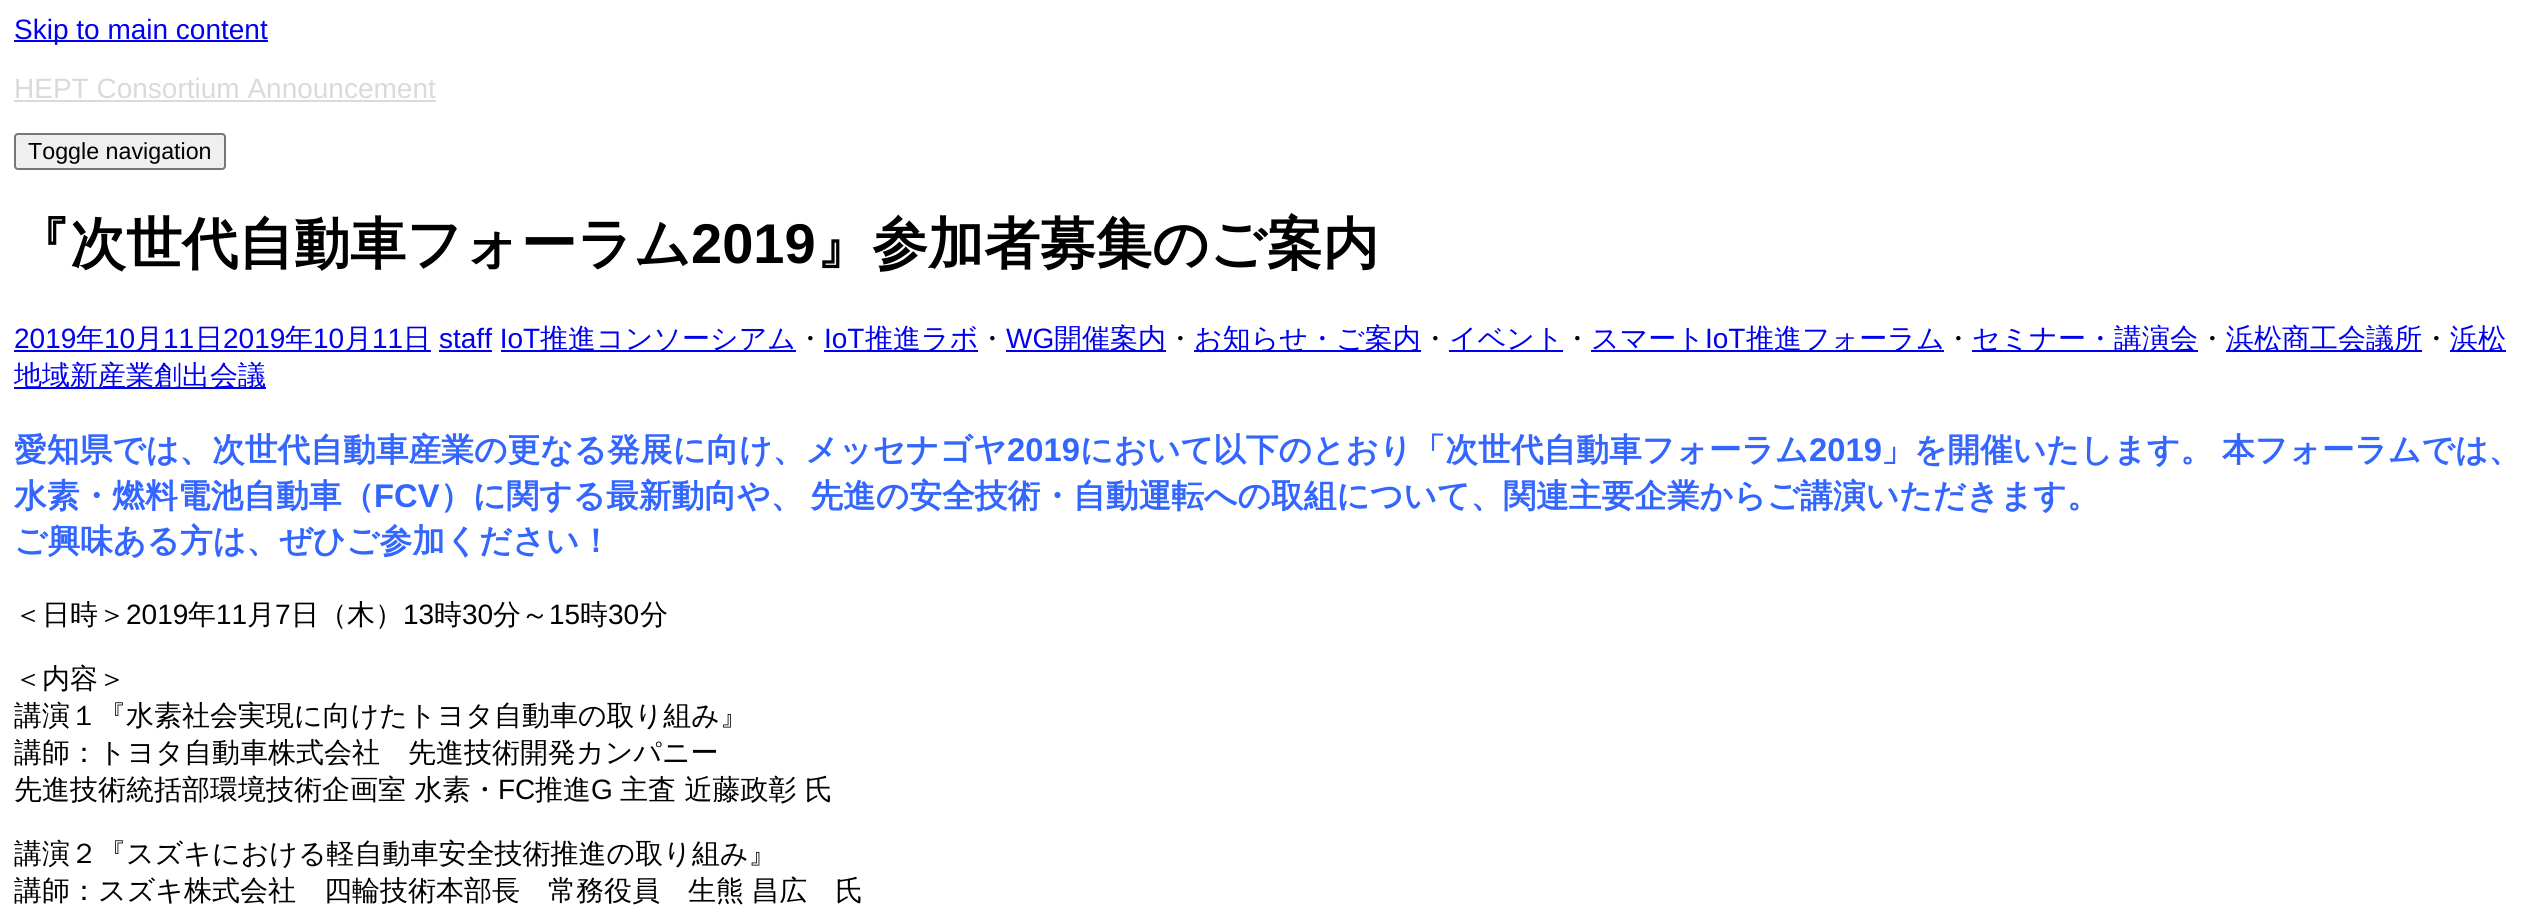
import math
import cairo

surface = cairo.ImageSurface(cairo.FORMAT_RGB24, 2542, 907)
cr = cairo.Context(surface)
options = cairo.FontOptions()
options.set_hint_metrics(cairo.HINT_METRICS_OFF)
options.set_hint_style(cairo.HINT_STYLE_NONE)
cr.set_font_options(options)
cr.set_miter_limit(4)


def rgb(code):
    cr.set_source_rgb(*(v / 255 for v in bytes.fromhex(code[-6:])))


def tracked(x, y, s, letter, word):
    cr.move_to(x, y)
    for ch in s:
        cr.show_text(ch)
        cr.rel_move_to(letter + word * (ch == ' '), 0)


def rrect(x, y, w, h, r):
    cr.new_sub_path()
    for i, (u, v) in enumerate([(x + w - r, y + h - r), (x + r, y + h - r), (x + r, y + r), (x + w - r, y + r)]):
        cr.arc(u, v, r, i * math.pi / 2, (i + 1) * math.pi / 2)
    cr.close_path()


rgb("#ffffff")
cr.paint()
rgb("#0000ee")
cr.rectangle(14, 40, 254, 2)
cr.fill()
rgb("#dadada")
cr.rectangle(14, 100, 422, 2)
cr.fill()
rgb("#efefef")
rrect(15, 134, 210, 35, 3)
cr.fill_preserve()
rgb("#767676")
cr.stroke()
for x, y, w, h, color in [
    (14, 350, 417, 2, "#0000ee"),
    (439, 350, 53, 2, "#0000ee"),
    (501, 350, 295, 2, "#0000ee"),
    (824, 350, 154, 2, "#0000ee"),
    (1006, 350, 160, 2, "#0000ee"),
    (1194, 350, 227, 2, "#0000ee"),
    (1449, 350, 114, 2, "#0000ee"),
    (1591, 350, 353, 2, "#0000ee"),
    (1972, 350, 226, 2, "#0000ee"),
    (2226, 350, 196, 2, "#0000ee"),
    (2450, 350, 56, 2, "#0000ee"),
    (14, 387, 252, 2, "#0000ee"),
]:
    rgb(color)
    cr.rectangle(x, y, w, h)
    cr.fill()
cr.select_font_face("Liberation Sans")
cr.set_font_size(28)
cr.move_to(14, 39)
cr.show_text("Skip to main content")
rgb("#dadada")
cr.move_to(14, 98)
cr.show_text("HEPT Consortium Announcement")
cr.set_font_size(23.25)
rgb("#000000")
cr.move_to(28, 159)
cr.show_text("Toggle navigation")
cr.select_font_face("WenQuanYi Zen Hei", cairo.FONT_SLANT_NORMAL, cairo.FONT_WEIGHT_BOLD)
cr.set_font_size(56)
cr.move_to(14, 263)
cr.show_text("『次世代自動車フォーラム")
cr.select_font_face("Liberation Sans", cairo.FONT_SLANT_NORMAL, cairo.FONT_WEIGHT_BOLD)
cr.move_to(691, 263)
cr.show_text("2019")
cr.select_font_face("WenQuanYi Zen Hei", cairo.FONT_SLANT_NORMAL, cairo.FONT_WEIGHT_BOLD)
cr.move_to(816, 263)
cr.show_text("』参加者募集のご案内")
cr.select_font_face("Liberation Sans")
cr.set_font_size(28)
rgb("#0000ee")
cr.move_to(14, 348)
cr.show_text("2019")
cr.select_font_face("WenQuanYi Zen Hei Medium")
cr.move_to(76, 348)
cr.show_text("年")
cr.select_font_face("Liberation Sans")
cr.move_to(104, 348)
cr.show_text("10")
cr.select_font_face("WenQuanYi Zen Hei Medium")
cr.move_to(135, 348)
cr.show_text("月")
cr.select_font_face("Liberation Sans")
cr.move_to(163, 348)
cr.show_text("11")
cr.select_font_face("WenQuanYi Zen Hei Medium")
cr.move_to(195, 348)
cr.show_text("日")
cr.select_font_face("Liberation Sans")
cr.move_to(223, 348)
cr.show_text("2019")
cr.select_font_face("WenQuanYi Zen Hei Medium")
cr.move_to(285, 348)
cr.show_text("年")
cr.select_font_face("Liberation Sans")
cr.move_to(313, 348)
cr.show_text("10")
cr.select_font_face("WenQuanYi Zen Hei Medium")
cr.move_to(344, 348)
cr.show_text("月")
cr.select_font_face("Liberation Sans")
cr.move_to(372, 348)
cr.show_text("11")
cr.select_font_face("WenQuanYi Zen Hei Medium")
cr.move_to(403, 348)
cr.show_text("日")
cr.select_font_face("Liberation Sans")
cr.move_to(439, 348)
cr.show_text("staff IoT")
cr.select_font_face("WenQuanYi Zen Hei Medium")
cr.move_to(540, 348)
cr.show_text("推進コンソーシアム")
rgb("#000000")
cr.move_to(796, 348)
cr.show_text("・")
cr.select_font_face("Liberation Sans")
rgb("#0000ee")
cr.move_to(824, 348)
cr.show_text("IoT")
cr.select_font_face("WenQuanYi Zen Hei Medium")
cr.move_to(865, 348)
cr.show_text("推進ラボ")
rgb("#000000")
cr.move_to(978, 348)
cr.show_text("・")
cr.select_font_face("Liberation Sans")
rgb("#0000ee")
cr.move_to(1006, 348)
cr.show_text("WG")
cr.select_font_face("WenQuanYi Zen Hei Medium")
cr.move_to(1054, 348)
cr.show_text("開催案内")
rgb("#000000")
cr.move_to(1166, 348)
cr.show_text("・")
rgb("#0000ee")
cr.move_to(1194, 348)
cr.show_text("お知らせ・ご案内")
rgb("#000000")
cr.move_to(1421, 348)
cr.show_text("・")
rgb("#0000ee")
cr.move_to(1449, 348)
cr.show_text("イベント")
rgb("#000000")
cr.move_to(1563, 348)
cr.show_text("・")
rgb("#0000ee")
cr.move_to(1591, 348)
cr.show_text("スマート")
cr.select_font_face("Liberation Sans")
cr.move_to(1705, 348)
cr.show_text("IoT")
cr.select_font_face("WenQuanYi Zen Hei Medium")
cr.move_to(1746, 348)
cr.show_text("推進フォーラム")
rgb("#000000")
cr.move_to(1944, 348)
cr.show_text("・")
rgb("#0000ee")
cr.move_to(1972, 348)
cr.show_text("セミナー・講演会")
rgb("#000000")
cr.move_to(2198, 348)
cr.show_text("・")
rgb("#0000ee")
cr.move_to(2226, 348)
cr.show_text("浜松商工会議所")
rgb("#000000")
cr.move_to(2422, 348)
cr.show_text("・")
rgb("#0000ee")
cr.move_to(2450, 348)
cr.show_text("浜松")
cr.move_to(14, 385)
cr.show_text("地域新産業創出会議")
cr.select_font_face("WenQuanYi Zen Hei", cairo.FONT_SLANT_NORMAL, cairo.FONT_WEIGHT_BOLD)
cr.set_font_size(32.75)
rgb("#3366ff")
cr.move_to(14, 461)
cr.show_text("愛知県では、次世代自動車産業の更なる発展に向け、メッセナゴヤ")
cr.select_font_face("Liberation Sans", cairo.FONT_SLANT_NORMAL, cairo.FONT_WEIGHT_BOLD)
cr.move_to(1007, 461)
cr.show_text("2019")
cr.select_font_face("WenQuanYi Zen Hei", cairo.FONT_SLANT_NORMAL, cairo.FONT_WEIGHT_BOLD)
cr.move_to(1080, 461)
cr.show_text("において")
cr.move_to(1213, 461)
cr.show_text("以下のとおり「次世代自動車フォーラム")
cr.select_font_face("Liberation Sans", cairo.FONT_SLANT_NORMAL, cairo.FONT_WEIGHT_BOLD)
cr.move_to(1809, 461)
cr.show_text("2019")
cr.select_font_face("WenQuanYi Zen Hei", cairo.FONT_SLANT_NORMAL, cairo.FONT_WEIGHT_BOLD)
for x, y, s in [
    (1881, 461, "」を開催いたします。"),
    (2222, 461, "本フォーラムでは、"),
    (14, 507, "水素・燃料電池自動車（"),
]:
    cr.move_to(x, y)
    cr.show_text(s)
cr.select_font_face("Liberation Sans", cairo.FONT_SLANT_NORMAL, cairo.FONT_WEIGHT_BOLD)
cr.move_to(374, 507)
cr.show_text("FCV")
cr.select_font_face("WenQuanYi Zen Hei", cairo.FONT_SLANT_NORMAL, cairo.FONT_WEIGHT_BOLD)
tracked(440, 507, "）に関する最新動向や、 先進の安全技術・自動運転への取組について、関連主要企業からご講演いただきます。", 0, -3)
cr.move_to(14, 552)
cr.show_text("ご興味ある方は、ぜひご参加ください！")
cr.select_font_face("WenQuanYi Zen Hei Medium")
cr.set_font_size(28)
rgb("#000000")
cr.move_to(14, 624)
cr.show_text("＜日時＞")
cr.select_font_face("Liberation Sans")
cr.move_to(126, 624)
cr.show_text("2019")
cr.select_font_face("WenQuanYi Zen Hei Medium")
cr.move_to(188, 624)
cr.show_text("年")
cr.select_font_face("Liberation Sans")
cr.move_to(216, 624)
cr.show_text("11")
cr.select_font_face("WenQuanYi Zen Hei Medium")
cr.move_to(247, 624)
cr.show_text("月")
cr.select_font_face("Liberation Sans")
cr.move_to(275, 624)
cr.show_text("7")
cr.select_font_face("WenQuanYi Zen Hei Medium")
cr.move_to(291, 624)
cr.show_text("日（木）")
cr.select_font_face("Liberation Sans")
cr.move_to(403, 624)
cr.show_text("13")
cr.select_font_face("WenQuanYi Zen Hei Medium")
cr.move_to(434, 624)
cr.show_text("時")
cr.select_font_face("Liberation Sans")
cr.move_to(462, 624)
cr.show_text("30")
cr.select_font_face("WenQuanYi Zen Hei Medium")
cr.move_to(493, 624)
cr.show_text("分～")
cr.select_font_face("Liberation Sans")
cr.move_to(549, 624)
cr.show_text("15")
cr.select_font_face("WenQuanYi Zen Hei Medium")
cr.move_to(580, 624)
cr.show_text("時")
cr.select_font_face("Liberation Sans")
cr.move_to(608, 624)
cr.show_text("30")
cr.select_font_face("WenQuanYi Zen Hei Medium")
for x, y, s in [
    (640, 624, "分"),
    (14, 688, "＜内容＞"),
    (14, 725, "講演１『水素社会実現に向けたトヨタ自動車の取り組み』"),
    (14, 762, "講師：トヨタ自動車株式会社　先進技術開発カンパニー"),
    (14, 799, "先進技術統括部環境技術企画室 水素・"),
]:
    cr.move_to(x, y)
    cr.show_text(s)
cr.select_font_face("Liberation Sans")
cr.move_to(498, 799)
cr.show_text("FC")
cr.select_font_face("WenQuanYi Zen Hei Medium")
cr.move_to(535, 799)
cr.show_text("推進")
cr.select_font_face("Liberation Sans")
cr.move_to(591, 799)
cr.show_text("G")
cr.select_font_face("WenQuanYi Zen Hei Medium")
cr.move_to(620, 799)
cr.show_text("主査 近藤政彰 氏")
cr.move_to(14, 863)
cr.show_text("講演２『スズキにおける軽自動車安全技術推進の取り組み』")
tracked(14, 900, "講師：スズキ株式会社　四輪技術本部長　常務役員　生熊 昌広　氏", 0, -1)
surface.write_to_png("page.png")
